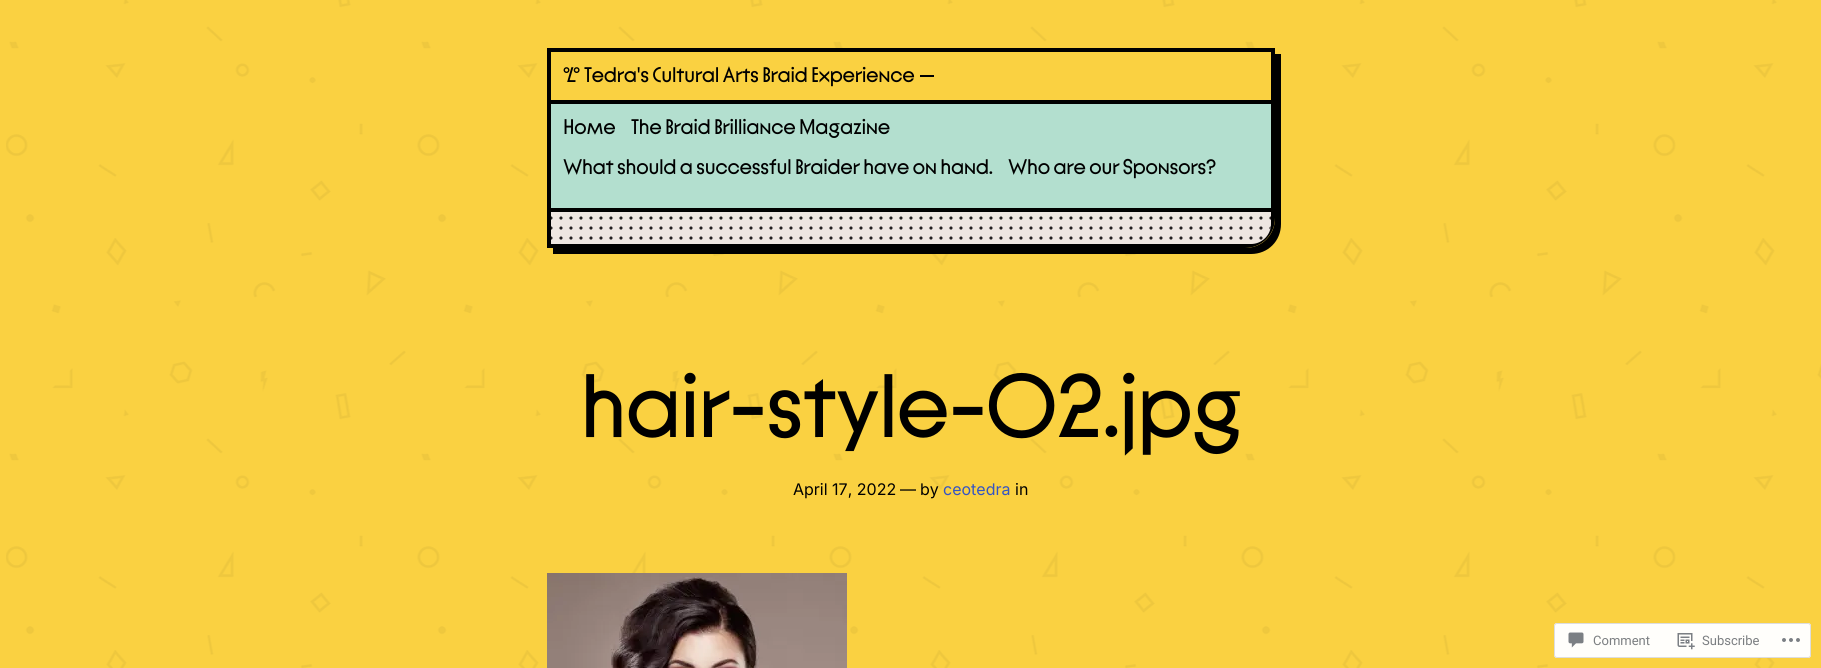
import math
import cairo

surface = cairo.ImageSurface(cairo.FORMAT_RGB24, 1821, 668)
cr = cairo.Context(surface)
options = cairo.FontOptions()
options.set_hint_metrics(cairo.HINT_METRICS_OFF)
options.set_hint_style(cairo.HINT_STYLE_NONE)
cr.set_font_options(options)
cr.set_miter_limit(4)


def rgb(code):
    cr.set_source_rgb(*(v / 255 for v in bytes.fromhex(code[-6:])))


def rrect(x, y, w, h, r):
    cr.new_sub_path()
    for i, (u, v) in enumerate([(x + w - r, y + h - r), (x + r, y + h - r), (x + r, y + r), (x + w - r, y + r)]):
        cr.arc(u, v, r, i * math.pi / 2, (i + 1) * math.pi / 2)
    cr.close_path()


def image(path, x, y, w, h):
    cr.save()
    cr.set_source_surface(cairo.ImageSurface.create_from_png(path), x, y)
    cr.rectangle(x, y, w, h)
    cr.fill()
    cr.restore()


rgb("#fad141")
cr.paint()
image("img/1.png", 6, 0, 1815, 668)
rgb("#000000")
cr.new_path()
cr.move_to(553, 248)
cr.line_to(553, 254)
cr.line_to(1251, 254)
cr.curve_to(1268, 254, 1281, 241, 1281, 224)
cr.line_to(1281, 54)
cr.line_to(1275, 54)
cr.line_to(1275, 218)
cr.curve_to(1275, 235, 1262, 248, 1245, 248)
cr.close_path()
cr.fill()
cr.new_path()
cr.move_to(549, 50)
cr.line_to(1273, 50)
cr.line_to(1273, 218)
cr.curve_to(1273, 233.5, 1260.5, 246, 1245, 246)
cr.line_to(549, 246)
cr.close_path()
cr.fill_preserve()
cr.set_line_width(4)
cr.stroke()
rgb("#fad141")
cr.rectangle(551, 52, 720, 48)
cr.fill()
image("img/2.png", 563, 67, 17, 15)
image("img/3.png", 584, 66, 331, 21)
rgb("#000000")
cr.rectangle(920, 75, 14, 2)
cr.fill()
rgb("#b3dfcf")
cr.rectangle(551, 104, 720, 104)
cr.fill()
image("img/4.png", 564, 119, 51, 16)
image("img/5.png", 631, 118, 259, 20)
image("img/6.png", 563, 158, 430, 17)
image("img/7.png", 1008, 158, 208, 21)
rgb("#eee6e1")
cr.new_path()
cr.move_to(551, 212)
cr.line_to(1271, 212)
cr.line_to(1271, 224)
cr.curve_to(1271, 235, 1262, 244, 1251, 244)
cr.line_to(551, 244)
cr.close_path()
cr.fill()
image("img/8.png", 551, 216, 720, 24)
image("img/9.png", 586, 372, 654, 84)
image("img/10.png", 547, 573, 300, 95)
cr.set_source_rgba(1, 1, 1, 0.98)
rrect(1554, 623, 257, 35, 3)
cr.fill()
rrect(1554.5, 623.5, 256, 34, 2.5)
cr.set_source_rgba(0.863, 0.863, 0.871, 0.98)
cr.set_line_width(1)
cr.stroke()
image("img/11.png", 1568, 632, 16, 16)
image("img/12.png", 1677, 633, 18, 17)
image("img/13.png", 1782, 638, 18, 4)
cr.select_font_face("Inter")
cr.set_font_size(16)
rgb("#000000")
for x, y, s in [
    (793, 495, "April 17, 2022"),
    (900, 495, "—"),
    (920, 495, "by"),
]:
    cr.move_to(x, y)
    cr.show_text(s)
rgb("#3454c3")
cr.move_to(943, 495)
cr.show_text("ceotedra")
rgb("#000000")
cr.move_to(1015, 495)
cr.show_text("in")
cr.select_font_face("Roboto")
cr.set_font_size(13)
rgb("#7b7e81")
cr.move_to(1593, 645)
cr.show_text("Comment")
cr.move_to(1702, 645)
cr.show_text("Subscribe")
surface.write_to_png("page.png")
